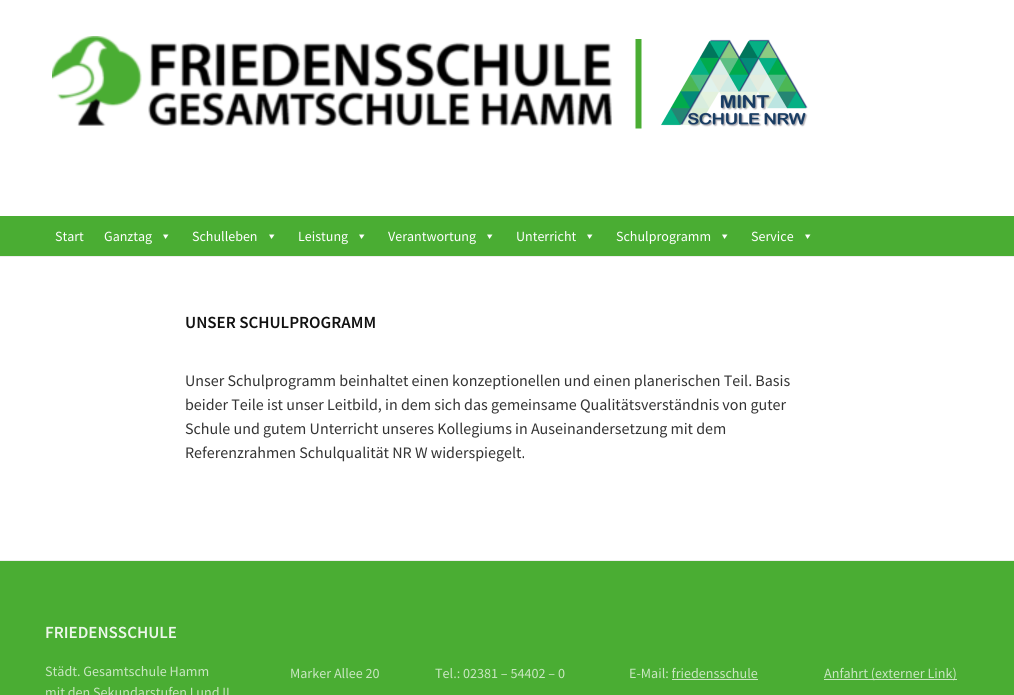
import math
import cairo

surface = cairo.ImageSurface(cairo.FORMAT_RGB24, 1014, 695)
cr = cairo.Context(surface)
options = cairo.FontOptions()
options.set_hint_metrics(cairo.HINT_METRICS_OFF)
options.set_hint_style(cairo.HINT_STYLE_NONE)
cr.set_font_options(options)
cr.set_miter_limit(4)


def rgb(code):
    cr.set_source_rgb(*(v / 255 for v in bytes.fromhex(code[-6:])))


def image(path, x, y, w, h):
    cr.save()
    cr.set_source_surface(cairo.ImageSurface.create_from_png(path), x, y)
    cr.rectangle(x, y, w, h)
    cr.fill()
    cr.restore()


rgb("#ffffff")
cr.paint()
rgb("#eeeeee")
cr.rectangle(0, 256, 1014, 1)
cr.fill()
image("img/1.png", 52, 36, 756, 93)
rgb("#4aad33")
cr.rectangle(0, 216, 1014, 40)
cr.fill()
rgb("#ffffff")
cr.new_path()
cr.move_to(168.5, 234.5)
cr.line_to(165.5, 239)
cr.line_to(163, 234.5)
cr.close_path()
cr.fill()
cr.new_path()
cr.move_to(274.5, 234.5)
cr.line_to(271.5, 239)
cr.line_to(269, 234.5)
cr.close_path()
cr.fill()
cr.new_path()
cr.move_to(364.5, 234.5)
cr.line_to(361.5, 239)
cr.line_to(359, 234.5)
cr.close_path()
cr.fill()
cr.new_path()
cr.move_to(492.5, 234.5)
cr.line_to(489.5, 239)
cr.line_to(487, 234.5)
cr.close_path()
cr.fill()
cr.new_path()
cr.move_to(592.5, 234.5)
cr.line_to(589.5, 239)
cr.line_to(587, 234.5)
cr.close_path()
cr.fill()
cr.new_path()
cr.move_to(727.5, 234.5)
cr.line_to(724.5, 239)
cr.line_to(722, 234.5)
cr.close_path()
cr.fill()
cr.new_path()
cr.move_to(810.5, 234.5)
cr.line_to(807.5, 239)
cr.line_to(805, 234.5)
cr.close_path()
cr.fill()
for x, y, w, h, color in [
    (0, 560, 1014, 1, "#eeeeee"),
    (0, 561, 1014, 134, "#4aad33"),
    (672, 679, 86, 1, "#c9e6c2"),
    (824, 679, 133, 1, "#c9e6c2"),
]:
    rgb(color)
    cr.rectangle(x, y, w, h)
    cr.fill()
cr.select_font_face("Source Sans Pro")
cr.set_font_size(14)
rgb("#ffffff")
for x, y, s in [
    (55, 241, "Start"),
    (104, 241, "Ganztag"),
    (192, 241, "Schulleben"),
    (298, 241, "Leistung"),
    (388, 241, "Verantwortung"),
    (516, 241, "Unterricht"),
    (616, 241, "Schulprogramm"),
    (751, 241, "Service"),
]:
    cr.move_to(x, y)
    cr.show_text(s)
cr.select_font_face("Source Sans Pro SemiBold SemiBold")
cr.set_font_size(17)
rgb("#111111")
cr.move_to(185, 328)
cr.show_text("UNSER SCHULPROGRAMM")
cr.select_font_face("Source Sans Pro")
cr.set_font_size(16)
rgb("#333333")
for x, y, s in [
    (185, 386, "Unser Schulprogramm beinhaltet einen konzeptionellen und einen planerischen Teil. Basis"),
    (185, 410, "beider Teile ist unser Leitbild, in dem sich das gemeinsame Qualitätsverständnis von guter"),
    (185, 434, "Schule und gutem Unterricht unseres Kollegiums in Auseinandersetzung mit dem"),
    (185, 458, "Referenzrahmen Schulqualität NR W widerspiegelt."),
]:
    cr.move_to(x, y)
    cr.show_text(s)
cr.select_font_face("Source Sans Pro SemiBold SemiBold")
cr.set_font_size(17)
rgb("#edf7eb")
cr.move_to(45, 638)
cr.show_text("FRIEDENSSCHULE")
cr.select_font_face("Source Sans Pro")
cr.set_font_size(14.1)
rgb("#c9e6c2")
for x, y, s in [
    (45, 676, "Städt. Gesamtschule Hamm"),
    (45, 697, "mit den Sekundarstufen I und II"),
    (290, 678, "Marker Allee 20"),
    (435, 678, "Tel.: 02381 – 54402 – 0"),
    (629, 678, "E-Mail: friedensschule"),
    (824, 678, "Anfahrt (externer Link)"),
]:
    cr.move_to(x, y)
    cr.show_text(s)
surface.write_to_png("page.png")
